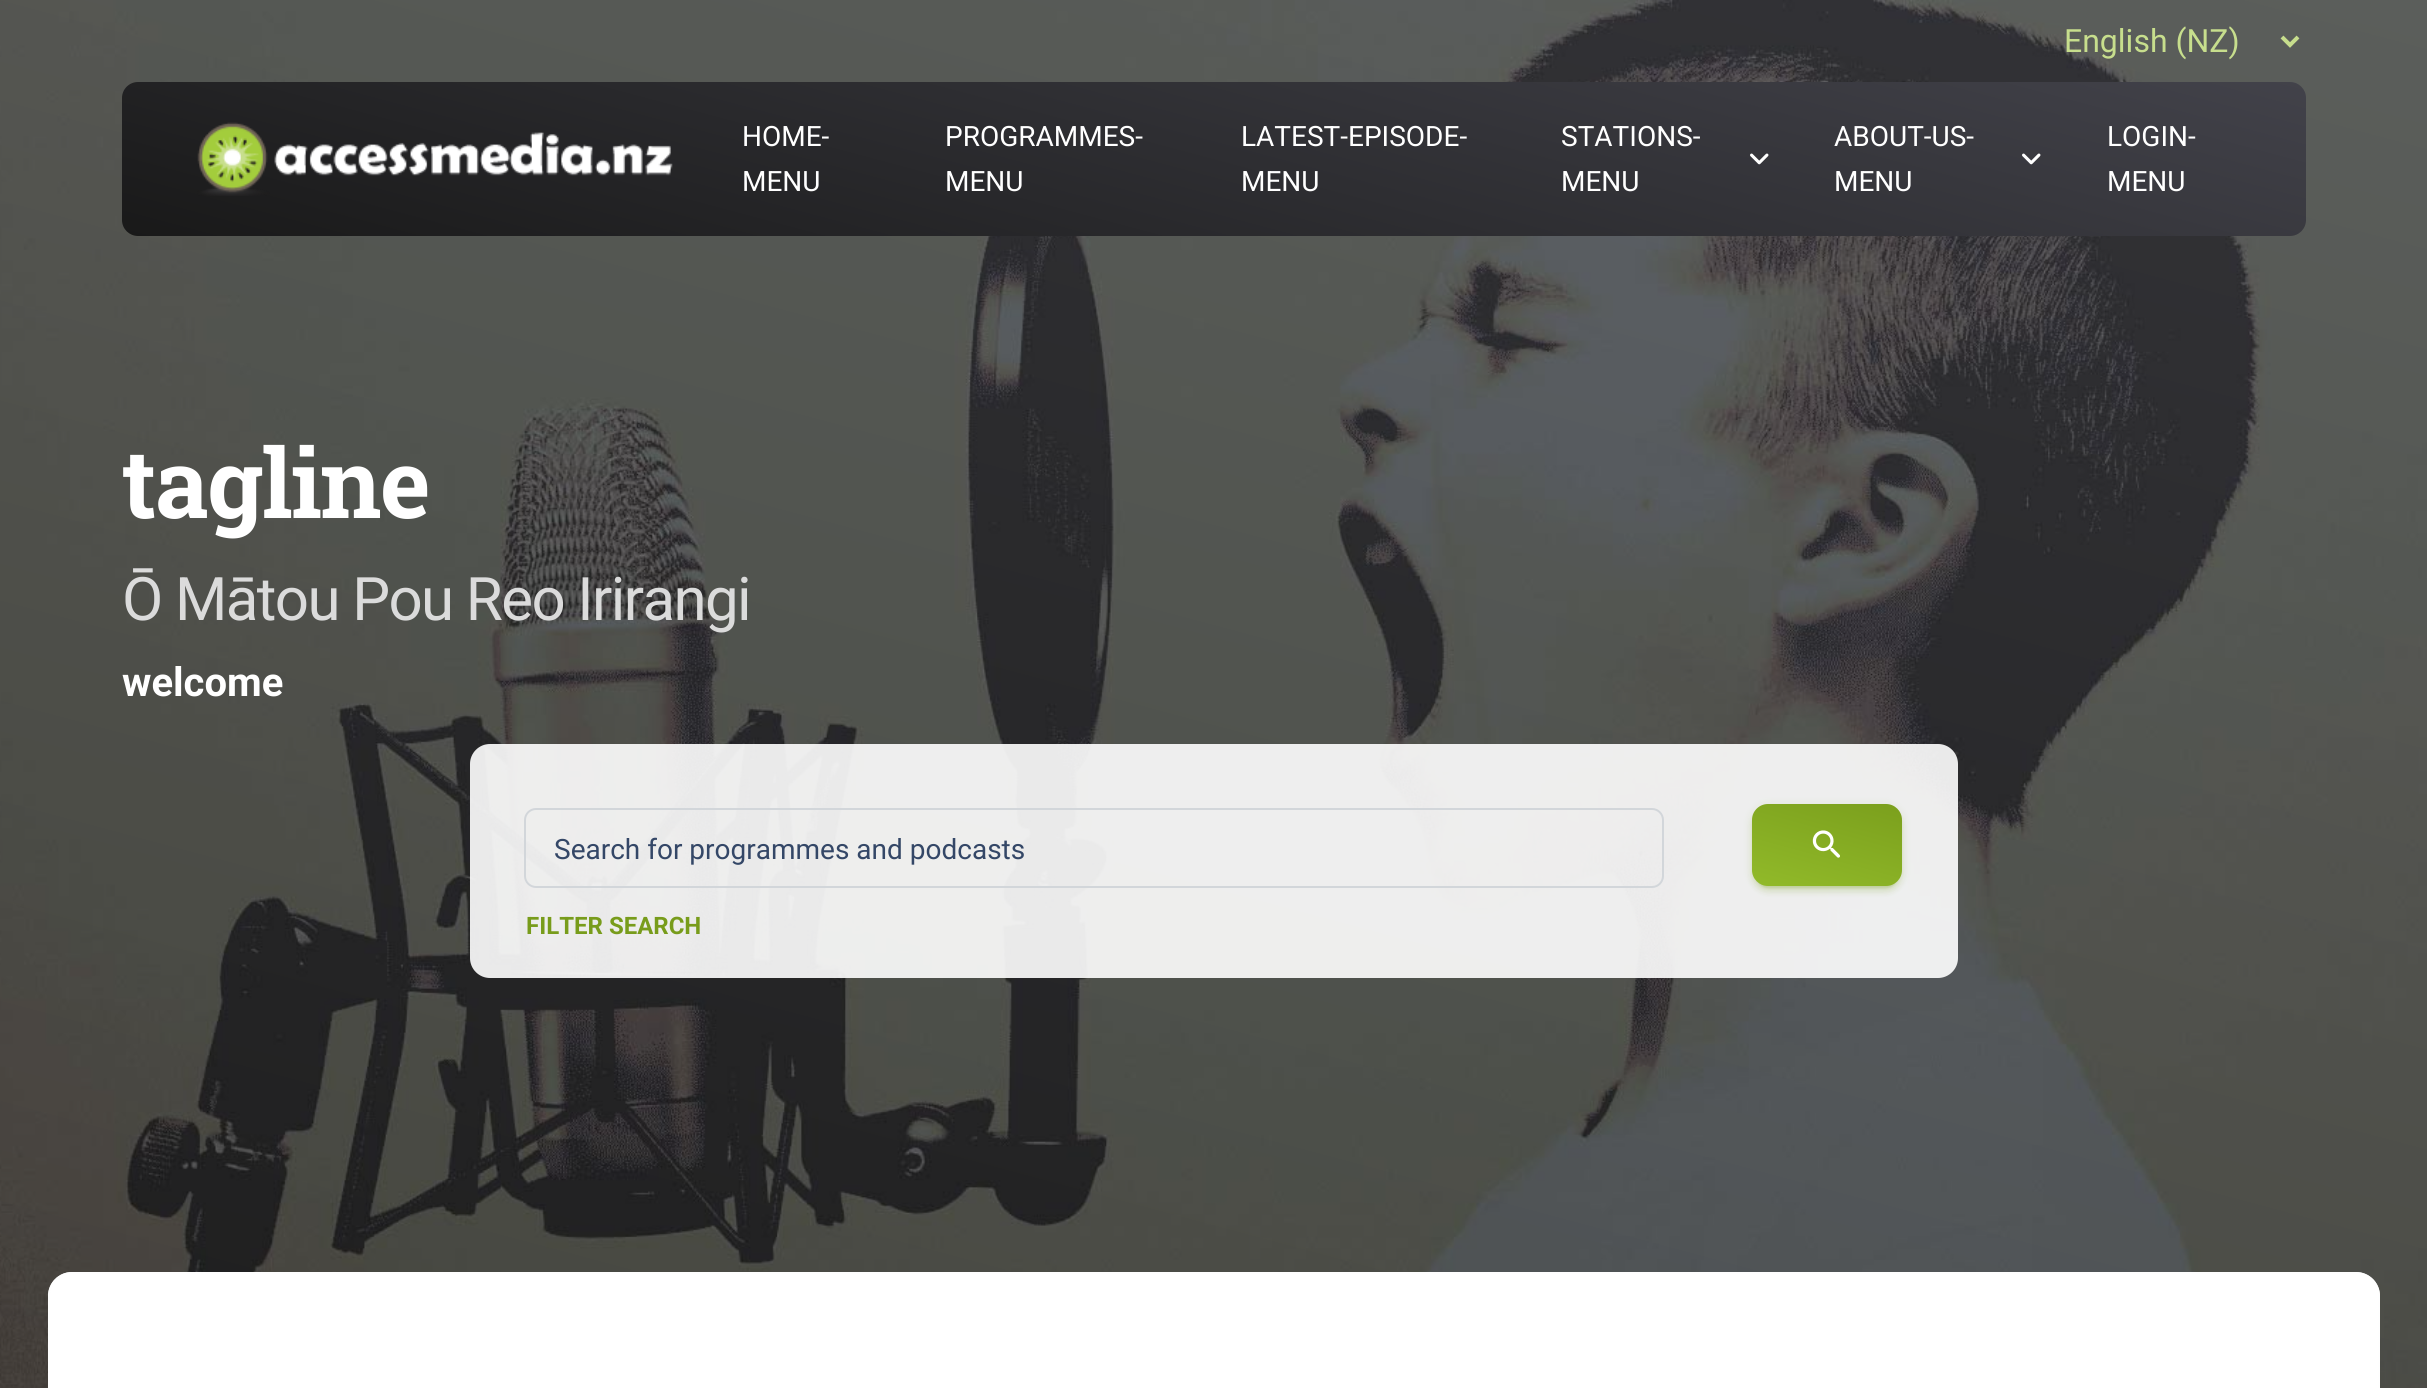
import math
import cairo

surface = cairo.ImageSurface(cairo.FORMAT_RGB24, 2427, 1388)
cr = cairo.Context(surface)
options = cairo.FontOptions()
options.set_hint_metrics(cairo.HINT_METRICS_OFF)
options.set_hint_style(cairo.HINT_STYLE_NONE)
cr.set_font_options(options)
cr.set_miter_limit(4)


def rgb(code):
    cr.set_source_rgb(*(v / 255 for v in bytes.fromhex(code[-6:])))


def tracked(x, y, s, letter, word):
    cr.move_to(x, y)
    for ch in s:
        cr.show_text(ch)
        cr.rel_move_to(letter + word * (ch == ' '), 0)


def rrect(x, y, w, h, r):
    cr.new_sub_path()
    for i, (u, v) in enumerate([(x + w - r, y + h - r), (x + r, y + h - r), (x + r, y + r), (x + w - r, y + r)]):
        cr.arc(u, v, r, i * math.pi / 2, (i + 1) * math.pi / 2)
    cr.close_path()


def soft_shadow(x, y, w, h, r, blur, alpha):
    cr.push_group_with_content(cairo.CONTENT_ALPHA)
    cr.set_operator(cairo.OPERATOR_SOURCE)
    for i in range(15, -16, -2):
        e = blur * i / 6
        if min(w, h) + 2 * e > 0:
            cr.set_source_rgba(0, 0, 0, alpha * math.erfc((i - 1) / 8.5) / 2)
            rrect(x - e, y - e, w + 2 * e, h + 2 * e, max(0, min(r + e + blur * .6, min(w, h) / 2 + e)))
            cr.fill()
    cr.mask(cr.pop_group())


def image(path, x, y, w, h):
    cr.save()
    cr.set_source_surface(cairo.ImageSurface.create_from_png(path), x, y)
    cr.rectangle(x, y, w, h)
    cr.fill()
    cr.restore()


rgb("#ffffff")
cr.paint()
image("img/4.png", 0, 0, 2427, 1388)
cr.new_path()
cr.move_to(2282, 37)
cr.line_to(2290, 45)
cr.line_to(2298, 37)
rgb("#c7de8d")
cr.set_line_width(4)
cr.stroke()
gradient = cairo.LinearGradient(1306, -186, 1122, 504)
gradient.add_color_stop_rgba(0, 0.259, 0.259, 0.29, 1)
gradient.add_color_stop_rgba(1, 0.098, 0.098, 0.098, 1)
cr.set_source(gradient)
rrect(122, 82, 2184, 154, 16)
cr.fill()
image("img/1.png", 197, 122, 476, 74)
image("img/2.png", 1750, 153, 19, 12)
image("img/3.png", 2022, 153, 19, 12)
cr.set_source_rgba(1, 1, 1, 0.9)
rrect(470, 744, 1488, 234, 20)
cr.fill()
rrect(525, 809, 1138, 78, 11)
rgb("#d2d6da")
cr.set_line_width(2)
cr.stroke()
rgb("#789c1b")
soft_shadow(1752, 806, 150, 82, 16, 5, 0.15)
soft_shadow(1756, 814, 142, 74, 12, 1, 0.2)
soft_shadow(1752, 810, 150, 82, 16, 3, 0.15)
gradient = cairo.LinearGradient(1864, 779, 1828, 911)
gradient.add_color_stop_rgba(0, 0.471, 0.612, 0.106, 1)
gradient.add_color_stop_rgba(1, 0.573, 0.733, 0.165, 1)
cr.set_source(gradient)
rrect(1752, 804, 150, 82, 16)
cr.fill()
image("img/5.png", 1812, 830, 28, 28)
rgb("#ffffff")
rrect(48, 1272, 2332, 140, 24)
cr.fill()
rrect(49, 1273, 2330, 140, 23)
cr.set_source_rgba(0.996, 0.996, 0.996, 0.9)
cr.stroke()
cr.select_font_face("Roboto")
cr.set_font_size(32)
rgb("#c7de8d")
cr.move_to(2064, 52)
cr.show_text("English (NZ)")
cr.set_font_size(28)
rgb("#ffffff")
for x, y, s in [
    (742, 146, "HOME-"),
    (742, 191, "MENU"),
    (945, 146, "PROGRAMMES-"),
    (945, 191, "MENU"),
    (1241, 146, "LATEST-EPISODE-"),
    (1241, 191, "MENU"),
    (1561, 146, "STATIONS-"),
    (1561, 191, "MENU"),
    (1834, 146, "ABOUT-US-"),
    (1834, 191, "MENU"),
    (2107, 146, "LOGIN-"),
    (2107, 191, "MENU"),
]:
    cr.move_to(x, y)
    cr.show_text(s)
cr.select_font_face("Roboto Slab", cairo.FONT_SLANT_NORMAL, cairo.FONT_WEIGHT_BOLD)
cr.set_font_size(96)
tracked(122, 518, "tagline", -1.6, 0)
cr.select_font_face("Roboto")
cr.set_font_size(60)
rgb("#dbdbdb")
tracked(122, 620, "Ō Mātou Pou Reo Irirangi", -1.6, 0)
cr.select_font_face("Roboto", cairo.FONT_SLANT_NORMAL, cairo.FONT_WEIGHT_BOLD)
cr.set_font_size(40)
rgb("#ffffff")
cr.move_to(122, 696)
cr.show_text("welcome")
cr.select_font_face("Roboto")
cr.set_font_size(28)
rgb("#344767")
cr.move_to(554, 859)
cr.show_text("Search for programmes and podcasts")
cr.select_font_face("Roboto", cairo.FONT_SLANT_NORMAL, cairo.FONT_WEIGHT_BOLD)
cr.set_font_size(24)
rgb("#789c1b")
cr.move_to(526, 934)
cr.show_text("FILTER SEARCH")
surface.write_to_png("page.png")
